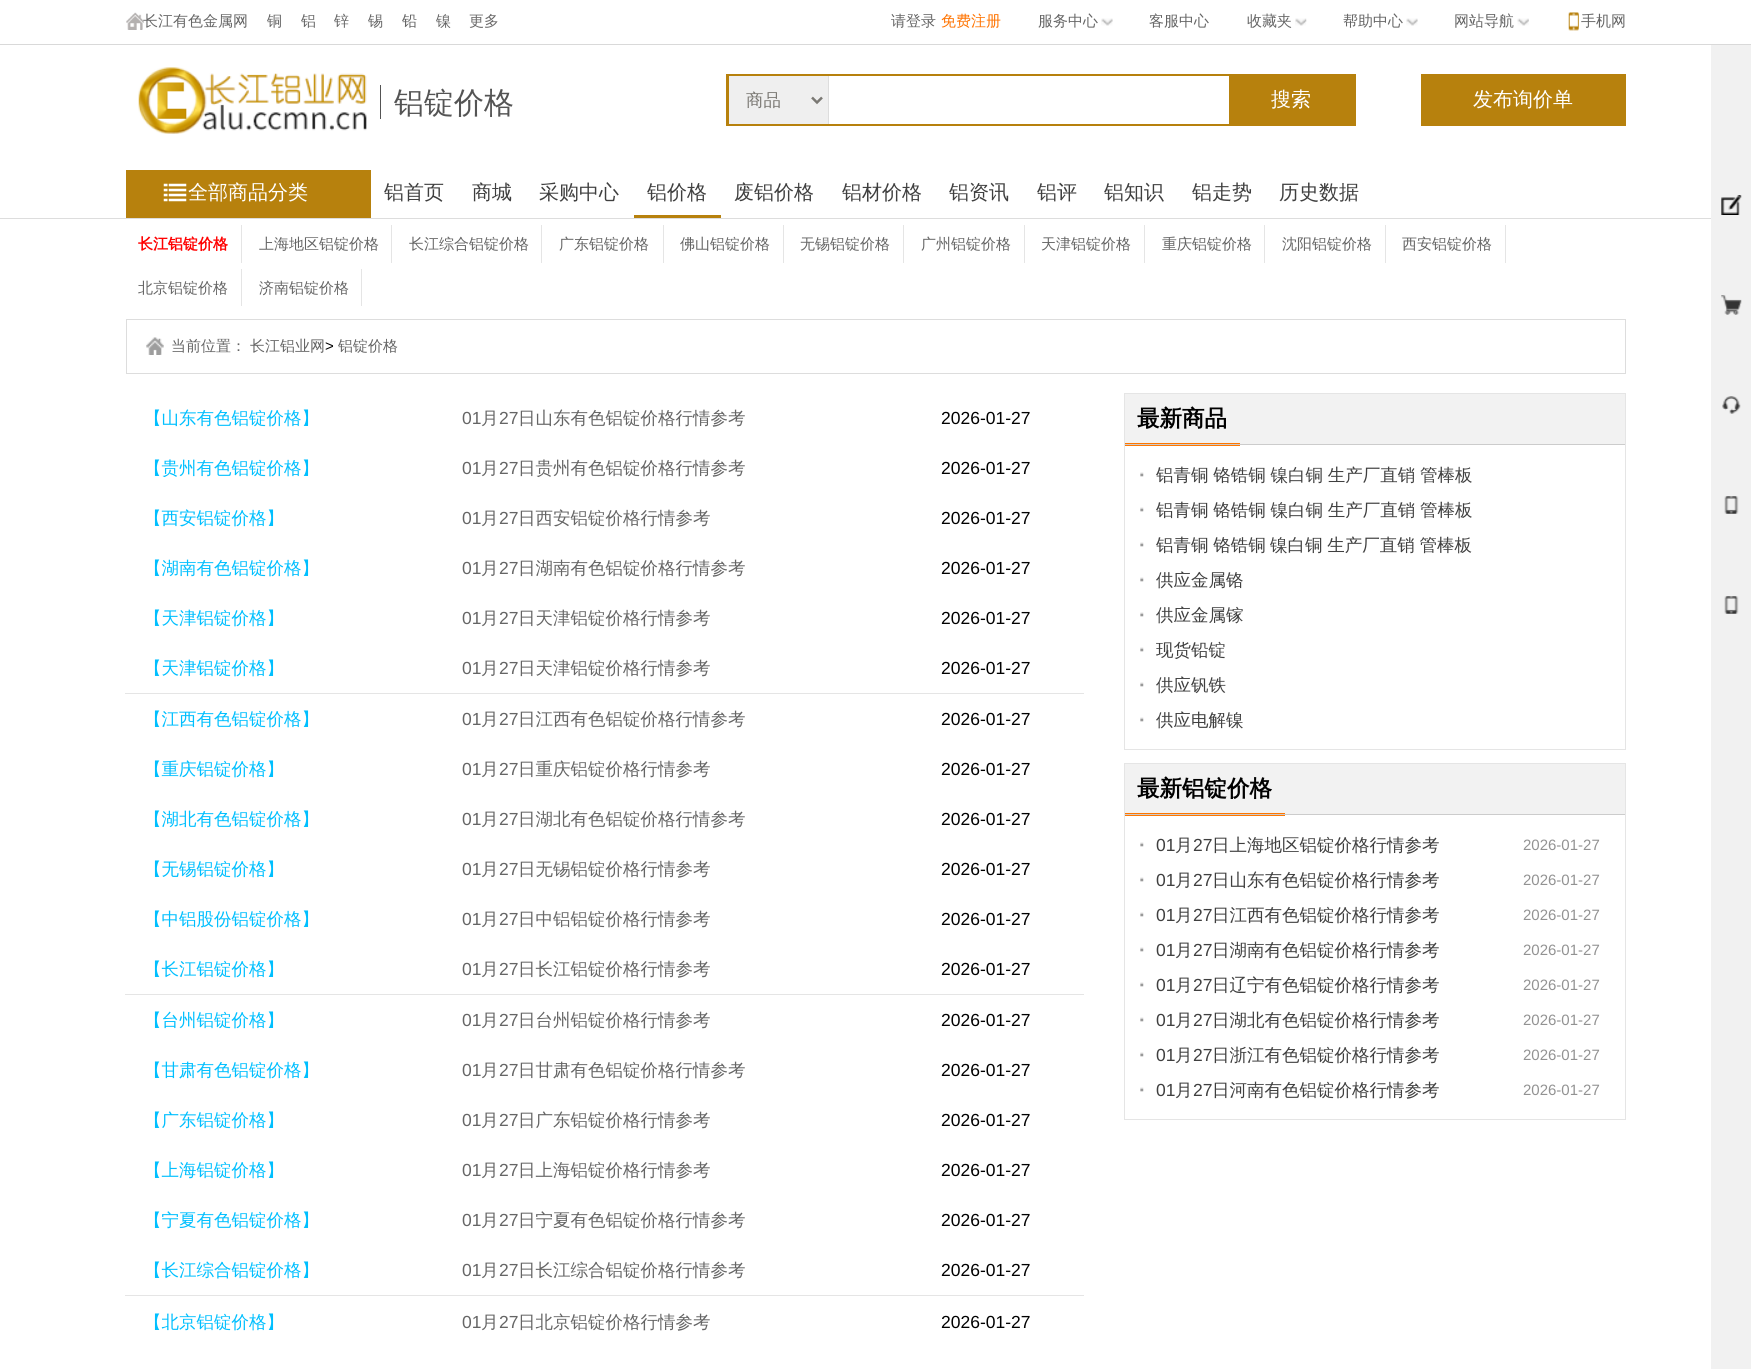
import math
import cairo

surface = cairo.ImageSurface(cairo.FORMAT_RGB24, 1751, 1369)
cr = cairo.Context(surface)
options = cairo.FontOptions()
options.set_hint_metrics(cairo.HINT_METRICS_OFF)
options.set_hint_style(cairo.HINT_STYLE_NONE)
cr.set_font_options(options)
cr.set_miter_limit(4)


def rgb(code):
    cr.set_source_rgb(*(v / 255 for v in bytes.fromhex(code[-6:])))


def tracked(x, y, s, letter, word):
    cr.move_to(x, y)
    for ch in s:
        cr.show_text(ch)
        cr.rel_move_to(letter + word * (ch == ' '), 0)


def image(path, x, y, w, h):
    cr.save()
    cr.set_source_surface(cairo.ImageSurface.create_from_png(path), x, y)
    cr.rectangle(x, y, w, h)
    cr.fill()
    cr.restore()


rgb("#ffffff")
cr.paint()
rgb("#d9d9d9")
cr.rectangle(0, 44, 1751, 1)
cr.fill()
image("img/1.png", 126, 12, 18, 18)
image("img/2.png", 1101, 18, 12, 8)
image("img/3.png", 1295, 18, 12, 8)
image("img/2.png", 1406, 18, 12, 8)
image("img/4.png", 1517, 18, 12, 8)
image("img/5.png", 1568, 12, 11, 19)
image("img/6.png", 138, 67, 229, 67)
rgb("#545454")
cr.rectangle(380, 85, 1, 34)
cr.fill()
cr.rectangle(727.5, 75.5, 627, 49)
rgb("#b7810d")
cr.set_line_width(3)
cr.stroke()
rgb("#efefef")
cr.rectangle(729, 76, 99, 48)
cr.fill()
rgb("#dddddd")
cr.rectangle(828, 76, 1, 48)
cr.fill()
cr.new_path()
cr.move_to(812, 97.5)
cr.line_to(817, 102.5)
cr.line_to(822, 97.5)
rgb("#7a7873")
cr.set_line_width(2.5)
cr.stroke()
for x, y, w, h, color in [
    (829, 76, 400, 48, "#ffffff"),
    (1229, 77, 124, 46, "#b7810d"),
    (1421, 74, 205, 52, "#b7810d"),
    (1711, 45, 40, 1324, "#f1f1f1"),
]:
    rgb(color)
    cr.rectangle(x, y, w, h)
    cr.fill()
image("img/7.png", 1721, 195, 21, 20)
image("img/8.png", 1721, 295, 21, 20)
image("img/9.png", 1722, 396, 19, 18)
image("img/10.png", 1724, 496, 15, 18)
image("img/10.png", 1724, 596, 15, 18)
rgb("#dddddd")
cr.rectangle(0, 218, 1711, 1)
cr.fill()
rgb("#b7810d")
cr.rectangle(126, 170, 245, 48)
cr.fill()
image("img/11.png", 163, 183, 24, 19)
for x, y, w, h, color in [
    (634, 215, 87, 3, "#b7810d"),
    (241, 225, 1, 38, "#e5e5e5"),
    (391, 225, 1, 38, "#e5e5e5"),
    (541, 225, 1, 38, "#e5e5e5"),
    (663, 225, 1, 38, "#e5e5e5"),
    (783, 225, 1, 38, "#e5e5e5"),
    (903, 225, 1, 38, "#e5e5e5"),
    (1024, 225, 1, 38, "#e5e5e5"),
    (1144, 225, 1, 38, "#e5e5e5"),
    (1264, 225, 1, 38, "#e5e5e5"),
    (1385, 225, 1, 38, "#e5e5e5"),
    (1505, 225, 1, 38, "#e5e5e5"),
    (241, 269, 1, 37, "#e5e5e5"),
    (361, 269, 1, 37, "#e5e5e5"),
]:
    rgb(color)
    cr.rectangle(x, y, w, h)
    cr.fill()
cr.rectangle(126.5, 319.5, 1499, 54)
rgb("#dddddd")
cr.set_line_width(1)
cr.stroke()
image("img/12.png", 146, 337, 18, 18)
for x, y, w, h, color in [
    (125, 693, 959, 1, "#e5e5e5"),
    (125, 994, 959, 1, "#e5e5e5"),
    (125, 1295, 959, 1, "#e5e5e5"),
]:
    rgb(color)
    cr.rectangle(x, y, w, h)
    cr.fill()
cr.rectangle(1124.5, 393.5, 501, 356)
cr.stroke()
for x, y, w, h, color in [
    (1125, 394, 500, 50, "#f2f2f2"),
    (1125, 443, 115, 3, "#ff7700"),
    (1125, 444, 500, 1, "#cccccc"),
]:
    rgb(color)
    cr.rectangle(x, y, w, h)
    cr.fill()
image("img/13.png", 1140, 472, 4, 5)
image("img/13.png", 1140, 507, 4, 5)
image("img/13.png", 1140, 542, 4, 5)
image("img/13.png", 1140, 577, 4, 5)
image("img/13.png", 1140, 612, 4, 5)
image("img/13.png", 1140, 647, 4, 5)
image("img/13.png", 1140, 682, 4, 5)
image("img/13.png", 1140, 717, 4, 5)
cr.rectangle(1124.5, 763.5, 501, 356)
rgb("#e5e5e5")
cr.stroke()
for x, y, w, h, color in [
    (1125, 764, 500, 50, "#f2f2f2"),
    (1125, 813, 160, 3, "#ff7700"),
    (1125, 814, 500, 1, "#cccccc"),
]:
    rgb(color)
    cr.rectangle(x, y, w, h)
    cr.fill()
image("img/13.png", 1140, 842, 4, 5)
image("img/13.png", 1140, 877, 4, 5)
image("img/13.png", 1140, 912, 4, 5)
image("img/13.png", 1140, 947, 4, 5)
image("img/13.png", 1140, 982, 4, 5)
image("img/13.png", 1140, 1017, 4, 5)
image("img/13.png", 1140, 1052, 4, 5)
image("img/13.png", 1140, 1087, 4, 5)
cr.select_font_face("WenQuanYi Zen Hei Medium")
cr.set_font_size(15)
rgb("#656565")
for x, y, s in [
    (143, 26, "长江有色金属网"),
    (267, 26, "铜"),
    (301, 26, "铝"),
    (334, 26, "锌"),
    (368, 26, "锡"),
    (402, 26, "铅"),
    (436, 26, "镍"),
]:
    cr.move_to(x, y)
    cr.show_text(s)
rgb("#6b6a6a")
cr.move_to(469, 26)
cr.show_text("更多")
rgb("#656565")
cr.move_to(891, 26)
cr.show_text("请登录")
rgb("#ff7300")
cr.move_to(941, 26)
cr.show_text("免费注册")
rgb("#656565")
for x, y, s in [
    (1038, 26, "服务中心"),
    (1149, 26, "客服中心"),
    (1247, 26, "收藏夹"),
    (1343, 26, "帮助中心"),
    (1454, 26, "网站导航"),
    (1581, 26, "手机网"),
]:
    cr.move_to(x, y)
    cr.show_text(s)
cr.set_font_size(30)
rgb("#545454")
cr.move_to(394, 113)
cr.show_text("铝锭价格")
cr.set_font_size(17.5)
rgb("#7a7873")
cr.move_to(746, 106)
cr.show_text("商品")
cr.set_font_size(20)
rgb("#ffffff")
for x, y, s in [
    (1271, 106, "搜索"),
    (1473, 106, "发布询价单"),
    (188, 199, "全部商品分类"),
]:
    cr.move_to(x, y)
    cr.show_text(s)
rgb("#3f3f3f")
for x, y, s in [
    (384, 199, "铝首页"),
    (472, 199, "商城"),
    (539, 199, "采购中心"),
    (647, 199, "铝价格"),
    (734, 199, "废铝价格"),
    (842, 199, "铝材价格"),
    (949, 199, "铝资讯"),
    (1037, 199, "铝评"),
    (1104, 199, "铝知识"),
    (1192, 199, "铝走势"),
    (1279, 199, "历史数据"),
]:
    cr.move_to(x, y)
    cr.show_text(s)
cr.select_font_face("WenQuanYi Zen Hei", cairo.FONT_SLANT_NORMAL, cairo.FONT_WEIGHT_BOLD)
cr.set_font_size(15)
rgb("#ff0000")
cr.move_to(138, 249)
cr.show_text("长江铝锭价格")
cr.select_font_face("WenQuanYi Zen Hei Medium")
rgb("#656565")
for x, y, s in [
    (259, 249, "上海地区铝锭价格"),
    (409, 249, "长江综合铝锭价格"),
    (559, 249, "广东铝锭价格"),
    (680, 249, "佛山铝锭价格"),
    (800, 249, "无锡铝锭价格"),
    (921, 249, "广州铝锭价格"),
    (1041, 249, "天津铝锭价格"),
    (1162, 249, "重庆铝锭价格"),
    (1282, 249, "沈阳铝锭价格"),
    (1402, 249, "西安铝锭价格"),
    (138, 293, "北京铝锭价格"),
    (259, 293, "济南铝锭价格"),
    (171, 351, "当前位置："),
    (250, 351, "长江铝业网"),
]:
    cr.move_to(x, y)
    cr.show_text(s)
cr.select_font_face("Liberation Sans")
rgb("#000000")
cr.move_to(325, 351)
cr.show_text(">")
cr.select_font_face("WenQuanYi Zen Hei Medium")
rgb("#656565")
cr.move_to(338, 351)
cr.show_text("铝锭价格")
cr.set_font_size(17.5)
rgb("#00bfff")
cr.move_to(144, 424)
cr.show_text("【山东有色铝锭价格】")
cr.select_font_face("Liberation Sans")
rgb("#656565")
cr.move_to(462, 424)
cr.show_text("01")
cr.select_font_face("WenQuanYi Zen Hei Medium")
cr.move_to(481, 424)
cr.show_text("月")
cr.select_font_face("Liberation Sans")
cr.move_to(499, 424)
cr.show_text("27")
cr.select_font_face("WenQuanYi Zen Hei Medium")
cr.move_to(518, 424)
cr.show_text("日山东有色铝锭价格行情参考")
cr.select_font_face("Liberation Sans")
rgb("#000000")
cr.move_to(941, 424)
cr.show_text("2026-01-27")
cr.select_font_face("WenQuanYi Zen Hei Medium")
rgb("#00bfff")
cr.move_to(144, 474)
cr.show_text("【贵州有色铝锭价格】")
cr.select_font_face("Liberation Sans")
rgb("#656565")
cr.move_to(462, 474)
cr.show_text("01")
cr.select_font_face("WenQuanYi Zen Hei Medium")
cr.move_to(481, 474)
cr.show_text("月")
cr.select_font_face("Liberation Sans")
cr.move_to(499, 474)
cr.show_text("27")
cr.select_font_face("WenQuanYi Zen Hei Medium")
cr.move_to(518, 474)
cr.show_text("日贵州有色铝锭价格行情参考")
cr.select_font_face("Liberation Sans")
rgb("#000000")
cr.move_to(941, 474)
cr.show_text("2026-01-27")
cr.select_font_face("WenQuanYi Zen Hei Medium")
rgb("#00bfff")
cr.move_to(144, 524)
cr.show_text("【西安铝锭价格】")
cr.select_font_face("Liberation Sans")
rgb("#656565")
cr.move_to(462, 524)
cr.show_text("01")
cr.select_font_face("WenQuanYi Zen Hei Medium")
cr.move_to(481, 524)
cr.show_text("月")
cr.select_font_face("Liberation Sans")
cr.move_to(499, 524)
cr.show_text("27")
cr.select_font_face("WenQuanYi Zen Hei Medium")
cr.move_to(518, 524)
cr.show_text("日西安铝锭价格行情参考")
cr.select_font_face("Liberation Sans")
rgb("#000000")
cr.move_to(941, 524)
cr.show_text("2026-01-27")
cr.select_font_face("WenQuanYi Zen Hei Medium")
rgb("#00bfff")
cr.move_to(144, 574)
cr.show_text("【湖南有色铝锭价格】")
cr.select_font_face("Liberation Sans")
rgb("#656565")
cr.move_to(462, 574)
cr.show_text("01")
cr.select_font_face("WenQuanYi Zen Hei Medium")
cr.move_to(481, 574)
cr.show_text("月")
cr.select_font_face("Liberation Sans")
cr.move_to(499, 574)
cr.show_text("27")
cr.select_font_face("WenQuanYi Zen Hei Medium")
cr.move_to(518, 574)
cr.show_text("日湖南有色铝锭价格行情参考")
cr.select_font_face("Liberation Sans")
rgb("#000000")
cr.move_to(941, 574)
cr.show_text("2026-01-27")
cr.select_font_face("WenQuanYi Zen Hei Medium")
rgb("#00bfff")
cr.move_to(144, 624)
cr.show_text("【天津铝锭价格】")
cr.select_font_face("Liberation Sans")
rgb("#656565")
cr.move_to(462, 624)
cr.show_text("01")
cr.select_font_face("WenQuanYi Zen Hei Medium")
cr.move_to(481, 624)
cr.show_text("月")
cr.select_font_face("Liberation Sans")
cr.move_to(499, 624)
cr.show_text("27")
cr.select_font_face("WenQuanYi Zen Hei Medium")
cr.move_to(518, 624)
cr.show_text("日天津铝锭价格行情参考")
cr.select_font_face("Liberation Sans")
rgb("#000000")
cr.move_to(941, 624)
cr.show_text("2026-01-27")
cr.select_font_face("WenQuanYi Zen Hei Medium")
rgb("#00bfff")
cr.move_to(144, 674)
cr.show_text("【天津铝锭价格】")
cr.select_font_face("Liberation Sans")
rgb("#656565")
cr.move_to(462, 674)
cr.show_text("01")
cr.select_font_face("WenQuanYi Zen Hei Medium")
cr.move_to(481, 674)
cr.show_text("月")
cr.select_font_face("Liberation Sans")
cr.move_to(499, 674)
cr.show_text("27")
cr.select_font_face("WenQuanYi Zen Hei Medium")
cr.move_to(518, 674)
cr.show_text("日天津铝锭价格行情参考")
cr.select_font_face("Liberation Sans")
rgb("#000000")
cr.move_to(941, 674)
cr.show_text("2026-01-27")
cr.select_font_face("WenQuanYi Zen Hei Medium")
rgb("#00bfff")
cr.move_to(144, 725)
cr.show_text("【江西有色铝锭价格】")
cr.select_font_face("Liberation Sans")
rgb("#656565")
cr.move_to(462, 725)
cr.show_text("01")
cr.select_font_face("WenQuanYi Zen Hei Medium")
cr.move_to(481, 725)
cr.show_text("月")
cr.select_font_face("Liberation Sans")
cr.move_to(499, 725)
cr.show_text("27")
cr.select_font_face("WenQuanYi Zen Hei Medium")
cr.move_to(518, 725)
cr.show_text("日江西有色铝锭价格行情参考")
cr.select_font_face("Liberation Sans")
rgb("#000000")
cr.move_to(941, 725)
cr.show_text("2026-01-27")
cr.select_font_face("WenQuanYi Zen Hei Medium")
rgb("#00bfff")
cr.move_to(144, 775)
cr.show_text("【重庆铝锭价格】")
cr.select_font_face("Liberation Sans")
rgb("#656565")
cr.move_to(462, 775)
cr.show_text("01")
cr.select_font_face("WenQuanYi Zen Hei Medium")
cr.move_to(481, 775)
cr.show_text("月")
cr.select_font_face("Liberation Sans")
cr.move_to(499, 775)
cr.show_text("27")
cr.select_font_face("WenQuanYi Zen Hei Medium")
cr.move_to(518, 775)
cr.show_text("日重庆铝锭价格行情参考")
cr.select_font_face("Liberation Sans")
rgb("#000000")
cr.move_to(941, 775)
cr.show_text("2026-01-27")
cr.select_font_face("WenQuanYi Zen Hei Medium")
rgb("#00bfff")
cr.move_to(144, 825)
cr.show_text("【湖北有色铝锭价格】")
cr.select_font_face("Liberation Sans")
rgb("#656565")
cr.move_to(462, 825)
cr.show_text("01")
cr.select_font_face("WenQuanYi Zen Hei Medium")
cr.move_to(481, 825)
cr.show_text("月")
cr.select_font_face("Liberation Sans")
cr.move_to(499, 825)
cr.show_text("27")
cr.select_font_face("WenQuanYi Zen Hei Medium")
cr.move_to(518, 825)
cr.show_text("日湖北有色铝锭价格行情参考")
cr.select_font_face("Liberation Sans")
rgb("#000000")
cr.move_to(941, 825)
cr.show_text("2026-01-27")
cr.select_font_face("WenQuanYi Zen Hei Medium")
rgb("#00bfff")
cr.move_to(144, 875)
cr.show_text("【无锡铝锭价格】")
cr.select_font_face("Liberation Sans")
rgb("#656565")
cr.move_to(462, 875)
cr.show_text("01")
cr.select_font_face("WenQuanYi Zen Hei Medium")
cr.move_to(481, 875)
cr.show_text("月")
cr.select_font_face("Liberation Sans")
cr.move_to(499, 875)
cr.show_text("27")
cr.select_font_face("WenQuanYi Zen Hei Medium")
cr.move_to(518, 875)
cr.show_text("日无锡铝锭价格行情参考")
cr.select_font_face("Liberation Sans")
rgb("#000000")
cr.move_to(941, 875)
cr.show_text("2026-01-27")
cr.select_font_face("WenQuanYi Zen Hei Medium")
rgb("#00bfff")
cr.move_to(144, 925)
cr.show_text("【中铝股份铝锭价格】")
cr.select_font_face("Liberation Sans")
rgb("#656565")
cr.move_to(462, 925)
cr.show_text("01")
cr.select_font_face("WenQuanYi Zen Hei Medium")
cr.move_to(481, 925)
cr.show_text("月")
cr.select_font_face("Liberation Sans")
cr.move_to(499, 925)
cr.show_text("27")
cr.select_font_face("WenQuanYi Zen Hei Medium")
cr.move_to(518, 925)
cr.show_text("日中铝铝锭价格行情参考")
cr.select_font_face("Liberation Sans")
rgb("#000000")
cr.move_to(941, 925)
cr.show_text("2026-01-27")
cr.select_font_face("WenQuanYi Zen Hei Medium")
rgb("#00bfff")
cr.move_to(144, 975)
cr.show_text("【长江铝锭价格】")
cr.select_font_face("Liberation Sans")
rgb("#656565")
cr.move_to(462, 975)
cr.show_text("01")
cr.select_font_face("WenQuanYi Zen Hei Medium")
cr.move_to(481, 975)
cr.show_text("月")
cr.select_font_face("Liberation Sans")
cr.move_to(499, 975)
cr.show_text("27")
cr.select_font_face("WenQuanYi Zen Hei Medium")
cr.move_to(518, 975)
cr.show_text("日长江铝锭价格行情参考")
cr.select_font_face("Liberation Sans")
rgb("#000000")
cr.move_to(941, 975)
cr.show_text("2026-01-27")
cr.select_font_face("WenQuanYi Zen Hei Medium")
rgb("#00bfff")
cr.move_to(144, 1026)
cr.show_text("【台州铝锭价格】")
cr.select_font_face("Liberation Sans")
rgb("#656565")
cr.move_to(462, 1026)
cr.show_text("01")
cr.select_font_face("WenQuanYi Zen Hei Medium")
cr.move_to(481, 1026)
cr.show_text("月")
cr.select_font_face("Liberation Sans")
cr.move_to(499, 1026)
cr.show_text("27")
cr.select_font_face("WenQuanYi Zen Hei Medium")
cr.move_to(518, 1026)
cr.show_text("日台州铝锭价格行情参考")
cr.select_font_face("Liberation Sans")
rgb("#000000")
cr.move_to(941, 1026)
cr.show_text("2026-01-27")
cr.select_font_face("WenQuanYi Zen Hei Medium")
rgb("#00bfff")
cr.move_to(144, 1076)
cr.show_text("【甘肃有色铝锭价格】")
cr.select_font_face("Liberation Sans")
rgb("#656565")
cr.move_to(462, 1076)
cr.show_text("01")
cr.select_font_face("WenQuanYi Zen Hei Medium")
cr.move_to(481, 1076)
cr.show_text("月")
cr.select_font_face("Liberation Sans")
cr.move_to(499, 1076)
cr.show_text("27")
cr.select_font_face("WenQuanYi Zen Hei Medium")
cr.move_to(518, 1076)
cr.show_text("日甘肃有色铝锭价格行情参考")
cr.select_font_face("Liberation Sans")
rgb("#000000")
cr.move_to(941, 1076)
cr.show_text("2026-01-27")
cr.select_font_face("WenQuanYi Zen Hei Medium")
rgb("#00bfff")
cr.move_to(144, 1126)
cr.show_text("【广东铝锭价格】")
cr.select_font_face("Liberation Sans")
rgb("#656565")
cr.move_to(462, 1126)
cr.show_text("01")
cr.select_font_face("WenQuanYi Zen Hei Medium")
cr.move_to(481, 1126)
cr.show_text("月")
cr.select_font_face("Liberation Sans")
cr.move_to(499, 1126)
cr.show_text("27")
cr.select_font_face("WenQuanYi Zen Hei Medium")
cr.move_to(518, 1126)
cr.show_text("日广东铝锭价格行情参考")
cr.select_font_face("Liberation Sans")
rgb("#000000")
cr.move_to(941, 1126)
cr.show_text("2026-01-27")
cr.select_font_face("WenQuanYi Zen Hei Medium")
rgb("#00bfff")
cr.move_to(144, 1176)
cr.show_text("【上海铝锭价格】")
cr.select_font_face("Liberation Sans")
rgb("#656565")
cr.move_to(462, 1176)
cr.show_text("01")
cr.select_font_face("WenQuanYi Zen Hei Medium")
cr.move_to(481, 1176)
cr.show_text("月")
cr.select_font_face("Liberation Sans")
cr.move_to(499, 1176)
cr.show_text("27")
cr.select_font_face("WenQuanYi Zen Hei Medium")
cr.move_to(518, 1176)
cr.show_text("日上海铝锭价格行情参考")
cr.select_font_face("Liberation Sans")
rgb("#000000")
cr.move_to(941, 1176)
cr.show_text("2026-01-27")
cr.select_font_face("WenQuanYi Zen Hei Medium")
rgb("#00bfff")
cr.move_to(144, 1226)
cr.show_text("【宁夏有色铝锭价格】")
cr.select_font_face("Liberation Sans")
rgb("#656565")
cr.move_to(462, 1226)
cr.show_text("01")
cr.select_font_face("WenQuanYi Zen Hei Medium")
cr.move_to(481, 1226)
cr.show_text("月")
cr.select_font_face("Liberation Sans")
cr.move_to(499, 1226)
cr.show_text("27")
cr.select_font_face("WenQuanYi Zen Hei Medium")
cr.move_to(518, 1226)
cr.show_text("日宁夏有色铝锭价格行情参考")
cr.select_font_face("Liberation Sans")
rgb("#000000")
cr.move_to(941, 1226)
cr.show_text("2026-01-27")
cr.select_font_face("WenQuanYi Zen Hei Medium")
rgb("#00bfff")
cr.move_to(144, 1276)
cr.show_text("【长江综合铝锭价格】")
cr.select_font_face("Liberation Sans")
rgb("#656565")
cr.move_to(462, 1276)
cr.show_text("01")
cr.select_font_face("WenQuanYi Zen Hei Medium")
cr.move_to(481, 1276)
cr.show_text("月")
cr.select_font_face("Liberation Sans")
cr.move_to(499, 1276)
cr.show_text("27")
cr.select_font_face("WenQuanYi Zen Hei Medium")
cr.move_to(518, 1276)
cr.show_text("日长江综合铝锭价格行情参考")
cr.select_font_face("Liberation Sans")
rgb("#000000")
cr.move_to(941, 1276)
cr.show_text("2026-01-27")
cr.select_font_face("WenQuanYi Zen Hei Medium")
rgb("#00bfff")
cr.move_to(144, 1328)
cr.show_text("【北京铝锭价格】")
cr.select_font_face("Liberation Sans")
rgb("#656565")
cr.move_to(462, 1328)
cr.show_text("01")
cr.select_font_face("WenQuanYi Zen Hei Medium")
cr.move_to(481, 1328)
cr.show_text("月")
cr.select_font_face("Liberation Sans")
cr.move_to(499, 1328)
cr.show_text("27")
cr.select_font_face("WenQuanYi Zen Hei Medium")
cr.move_to(518, 1328)
cr.show_text("日北京铝锭价格行情参考")
cr.select_font_face("Liberation Sans")
rgb("#000000")
cr.move_to(941, 1328)
cr.show_text("2026-01-27")
cr.select_font_face("WenQuanYi Zen Hei", cairo.FONT_SLANT_NORMAL, cairo.FONT_WEIGHT_BOLD)
cr.set_font_size(22.5)
cr.move_to(1137, 426)
cr.show_text("最新商品")
cr.select_font_face("WenQuanYi Zen Hei Medium")
cr.set_font_size(17.5)
rgb("#3f3f3f")
for x, y, s in [
    (1156, 481, "铝青铜 铬锆铜 镍白铜 生产厂直销 管棒板"),
    (1156, 516, "铝青铜 铬锆铜 镍白铜 生产厂直销 管棒板"),
    (1156, 551, "铝青铜 铬锆铜"),
    (1270, 551, "镍白铜 生产厂直销 管棒板"),
]:
    tracked(x, y, s, 0, -0.5)
for x, y, s in [
    (1156, 586, "供应金属铬"),
    (1156, 621, "供应金属镓"),
    (1156, 656, "现货铅锭"),
    (1156, 691, "供应钒铁"),
    (1156, 726, "供应电解镍"),
]:
    cr.move_to(x, y)
    cr.show_text(s)
cr.select_font_face("WenQuanYi Zen Hei", cairo.FONT_SLANT_NORMAL, cairo.FONT_WEIGHT_BOLD)
cr.set_font_size(22.5)
rgb("#000000")
cr.move_to(1137, 796)
cr.show_text("最新铝锭价格")
cr.select_font_face("Liberation Sans")
cr.set_font_size(17.5)
rgb("#3f3f3f")
cr.move_to(1156, 851)
cr.show_text("01")
cr.select_font_face("WenQuanYi Zen Hei Medium")
cr.move_to(1175, 851)
cr.show_text("月")
cr.select_font_face("Liberation Sans")
cr.move_to(1193, 851)
cr.show_text("27")
cr.select_font_face("WenQuanYi Zen Hei Medium")
cr.move_to(1212, 851)
cr.show_text("日上海地区铝锭价格行情参考")
cr.select_font_face("Liberation Sans")
cr.set_font_size(15)
rgb("#929292")
cr.move_to(1523, 850)
cr.show_text("2026-01-27")
cr.set_font_size(17.5)
rgb("#3f3f3f")
cr.move_to(1156, 886)
cr.show_text("01")
cr.select_font_face("WenQuanYi Zen Hei Medium")
cr.move_to(1175, 886)
cr.show_text("月")
cr.select_font_face("Liberation Sans")
cr.move_to(1193, 886)
cr.show_text("27")
cr.select_font_face("WenQuanYi Zen Hei Medium")
cr.move_to(1212, 886)
cr.show_text("日山东有色铝锭价格行情参考")
cr.select_font_face("Liberation Sans")
cr.set_font_size(15)
rgb("#929292")
cr.move_to(1523, 885)
cr.show_text("2026-01-27")
cr.set_font_size(17.5)
rgb("#3f3f3f")
cr.move_to(1156, 921)
cr.show_text("01")
cr.select_font_face("WenQuanYi Zen Hei Medium")
cr.move_to(1175, 921)
cr.show_text("月")
cr.select_font_face("Liberation Sans")
cr.move_to(1193, 921)
cr.show_text("27")
cr.select_font_face("WenQuanYi Zen Hei Medium")
cr.move_to(1212, 921)
cr.show_text("日江西有色铝锭价格行情参考")
cr.select_font_face("Liberation Sans")
cr.set_font_size(15)
rgb("#929292")
cr.move_to(1523, 920)
cr.show_text("2026-01-27")
cr.set_font_size(17.5)
rgb("#3f3f3f")
cr.move_to(1156, 956)
cr.show_text("01")
cr.select_font_face("WenQuanYi Zen Hei Medium")
cr.move_to(1175, 956)
cr.show_text("月")
cr.select_font_face("Liberation Sans")
cr.move_to(1193, 956)
cr.show_text("27")
cr.select_font_face("WenQuanYi Zen Hei Medium")
cr.move_to(1212, 956)
cr.show_text("日湖南有色铝锭价格行情参考")
cr.select_font_face("Liberation Sans")
cr.set_font_size(15)
rgb("#929292")
cr.move_to(1523, 955)
cr.show_text("2026-01-27")
cr.set_font_size(17.5)
rgb("#3f3f3f")
cr.move_to(1156, 991)
cr.show_text("01")
cr.select_font_face("WenQuanYi Zen Hei Medium")
cr.move_to(1175, 991)
cr.show_text("月")
cr.select_font_face("Liberation Sans")
cr.move_to(1193, 991)
cr.show_text("27")
cr.select_font_face("WenQuanYi Zen Hei Medium")
cr.move_to(1212, 991)
cr.show_text("日辽宁有色铝锭价格行情参考")
cr.select_font_face("Liberation Sans")
cr.set_font_size(15)
rgb("#929292")
cr.move_to(1523, 990)
cr.show_text("2026-01-27")
cr.set_font_size(17.5)
rgb("#3f3f3f")
cr.move_to(1156, 1026)
cr.show_text("01")
cr.select_font_face("WenQuanYi Zen Hei Medium")
cr.move_to(1175, 1026)
cr.show_text("月")
cr.select_font_face("Liberation Sans")
cr.move_to(1193, 1026)
cr.show_text("27")
cr.select_font_face("WenQuanYi Zen Hei Medium")
cr.move_to(1212, 1026)
cr.show_text("日湖北有色铝锭价格行情参考")
cr.select_font_face("Liberation Sans")
cr.set_font_size(15)
rgb("#929292")
cr.move_to(1523, 1025)
cr.show_text("2026-01-27")
cr.set_font_size(17.5)
rgb("#3f3f3f")
cr.move_to(1156, 1061)
cr.show_text("01")
cr.select_font_face("WenQuanYi Zen Hei Medium")
cr.move_to(1175, 1061)
cr.show_text("月")
cr.select_font_face("Liberation Sans")
cr.move_to(1193, 1061)
cr.show_text("27")
cr.select_font_face("WenQuanYi Zen Hei Medium")
cr.move_to(1212, 1061)
cr.show_text("日浙江有色铝锭价格行情参考")
cr.select_font_face("Liberation Sans")
cr.set_font_size(15)
rgb("#929292")
cr.move_to(1523, 1060)
cr.show_text("2026-01-27")
cr.set_font_size(17.5)
rgb("#3f3f3f")
cr.move_to(1156, 1096)
cr.show_text("01")
cr.select_font_face("WenQuanYi Zen Hei Medium")
cr.move_to(1175, 1096)
cr.show_text("月")
cr.select_font_face("Liberation Sans")
cr.move_to(1193, 1096)
cr.show_text("27")
cr.select_font_face("WenQuanYi Zen Hei Medium")
cr.move_to(1212, 1096)
cr.show_text("日河南有色铝锭价格行情参考")
cr.select_font_face("Liberation Sans")
cr.set_font_size(15)
rgb("#929292")
cr.move_to(1523, 1095)
cr.show_text("2026-01-27")
surface.write_to_png("page.png")
